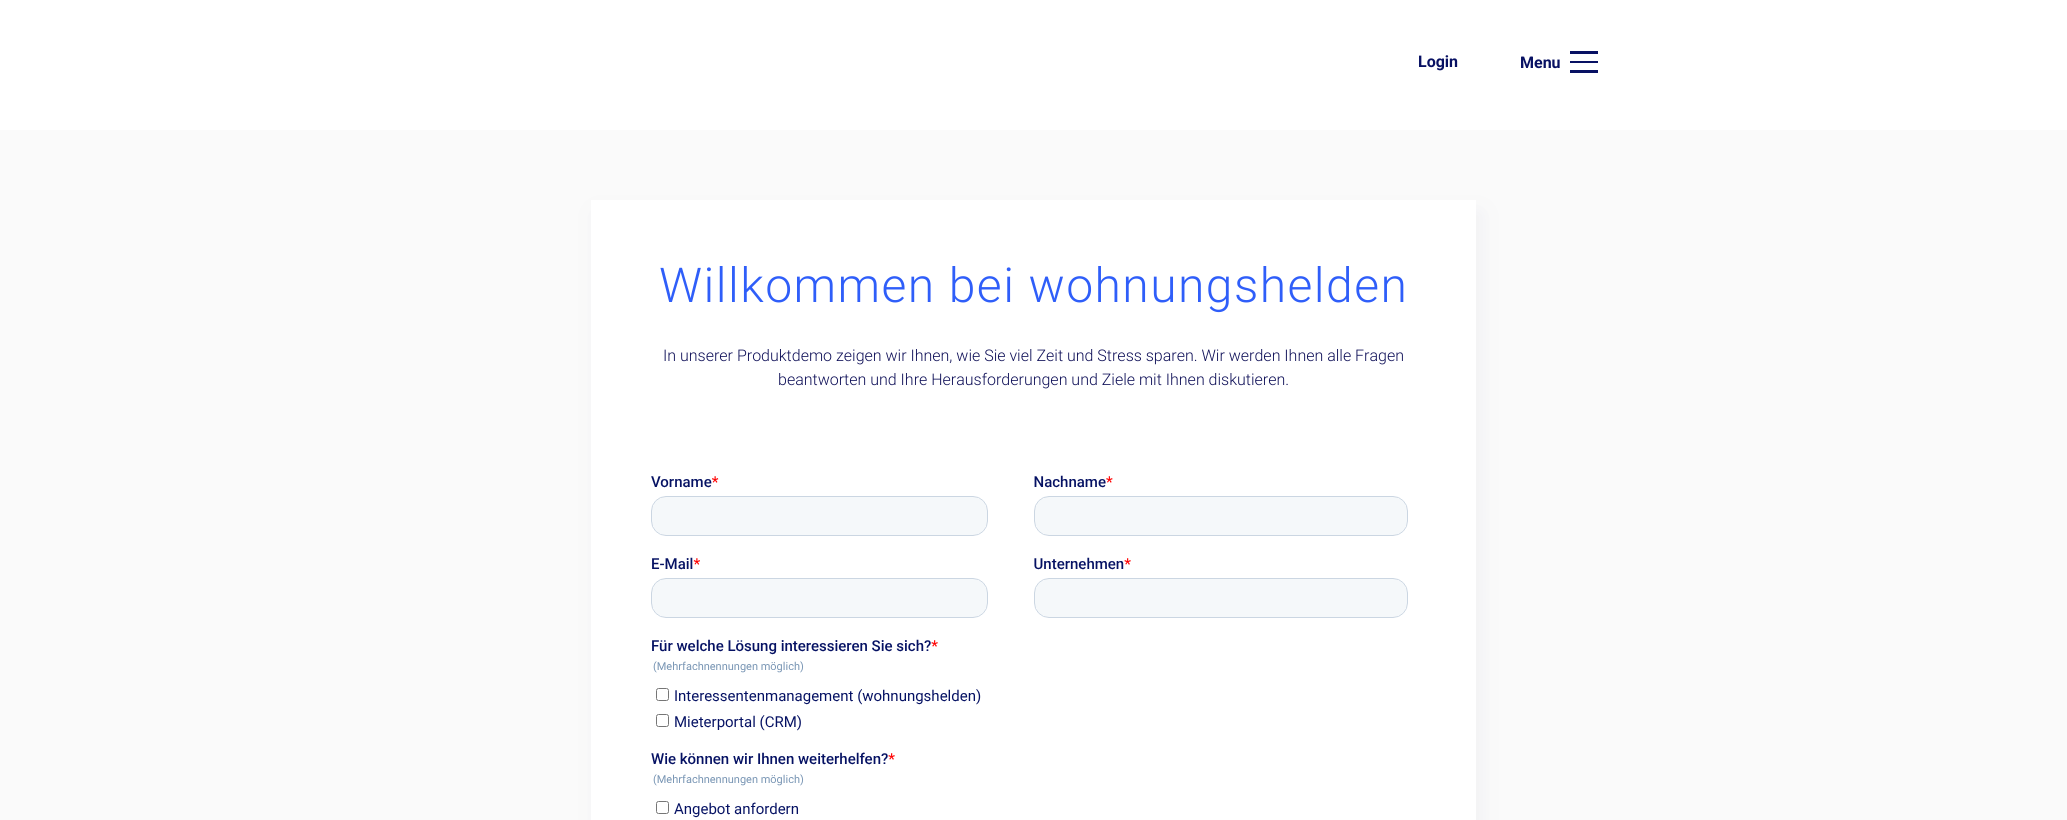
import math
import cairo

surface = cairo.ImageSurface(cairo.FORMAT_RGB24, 2067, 820)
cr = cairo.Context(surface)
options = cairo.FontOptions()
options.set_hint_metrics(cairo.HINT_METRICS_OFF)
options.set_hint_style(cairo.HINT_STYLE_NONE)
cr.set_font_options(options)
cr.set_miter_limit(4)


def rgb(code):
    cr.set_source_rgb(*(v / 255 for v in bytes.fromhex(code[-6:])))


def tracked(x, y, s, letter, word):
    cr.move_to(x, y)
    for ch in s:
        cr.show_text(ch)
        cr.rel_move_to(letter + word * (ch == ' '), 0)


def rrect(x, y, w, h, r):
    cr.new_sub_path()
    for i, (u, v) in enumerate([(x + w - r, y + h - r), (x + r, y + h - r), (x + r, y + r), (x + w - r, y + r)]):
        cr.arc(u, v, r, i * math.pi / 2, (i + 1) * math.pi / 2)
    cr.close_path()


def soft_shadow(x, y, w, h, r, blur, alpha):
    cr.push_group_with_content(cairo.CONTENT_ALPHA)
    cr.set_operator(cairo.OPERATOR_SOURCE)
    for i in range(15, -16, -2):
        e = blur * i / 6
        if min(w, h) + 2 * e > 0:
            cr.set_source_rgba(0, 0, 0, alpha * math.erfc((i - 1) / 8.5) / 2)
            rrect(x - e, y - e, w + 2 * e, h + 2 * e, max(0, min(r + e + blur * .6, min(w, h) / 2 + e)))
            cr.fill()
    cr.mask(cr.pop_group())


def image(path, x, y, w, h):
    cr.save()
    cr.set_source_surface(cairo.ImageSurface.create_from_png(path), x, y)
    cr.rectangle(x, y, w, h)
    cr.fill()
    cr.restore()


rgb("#fafafa")
cr.paint()
for x, y, w, h, color in [
    (0, 0, 2067, 130, "#ffffff"),
    (1570, 51, 28, 3, "#081163"),
    (1570, 61, 28, 2, "#081163"),
    (1570, 70, 28, 3, "#081163"),
]:
    rgb(color)
    cr.rectangle(x, y, w, h)
    cr.fill()
rgb("#f0f0f3")
soft_shadow(596, 213, 885, 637, 0, 10, 1)
rgb("#ffffff")
cr.rectangle(591, 200, 885, 620)
cr.fill()
image("img/1.png", 651, 475, 757, 343)
cr.select_font_face("Roboto", cairo.FONT_SLANT_NORMAL, cairo.FONT_WEIGHT_BOLD)
cr.set_font_size(16)
rgb("#081163")
cr.move_to(1418, 67)
cr.show_text("Login")
cr.move_to(1520, 68)
cr.show_text("Menu")
cr.select_font_face("Roboto Light")
cr.set_font_size(48)
rgb("#2f5ef9")
tracked(659, 302, "Willkommen bei wohnungshelden", 1.45, 0)
cr.set_font_size(16)
rgb("#0f1058")
cr.move_to(663, 361)
cr.show_text("In unserer Produktdemo zeigen wir Ihnen, wie Sie viel Zeit und Stress sparen. Wir werden Ihnen alle Fragen")
cr.move_to(778, 385)
cr.show_text("beantworten und Ihre Herausforderungen und Ziele mit Ihnen diskutieren.")
surface.write_to_png("page.png")
